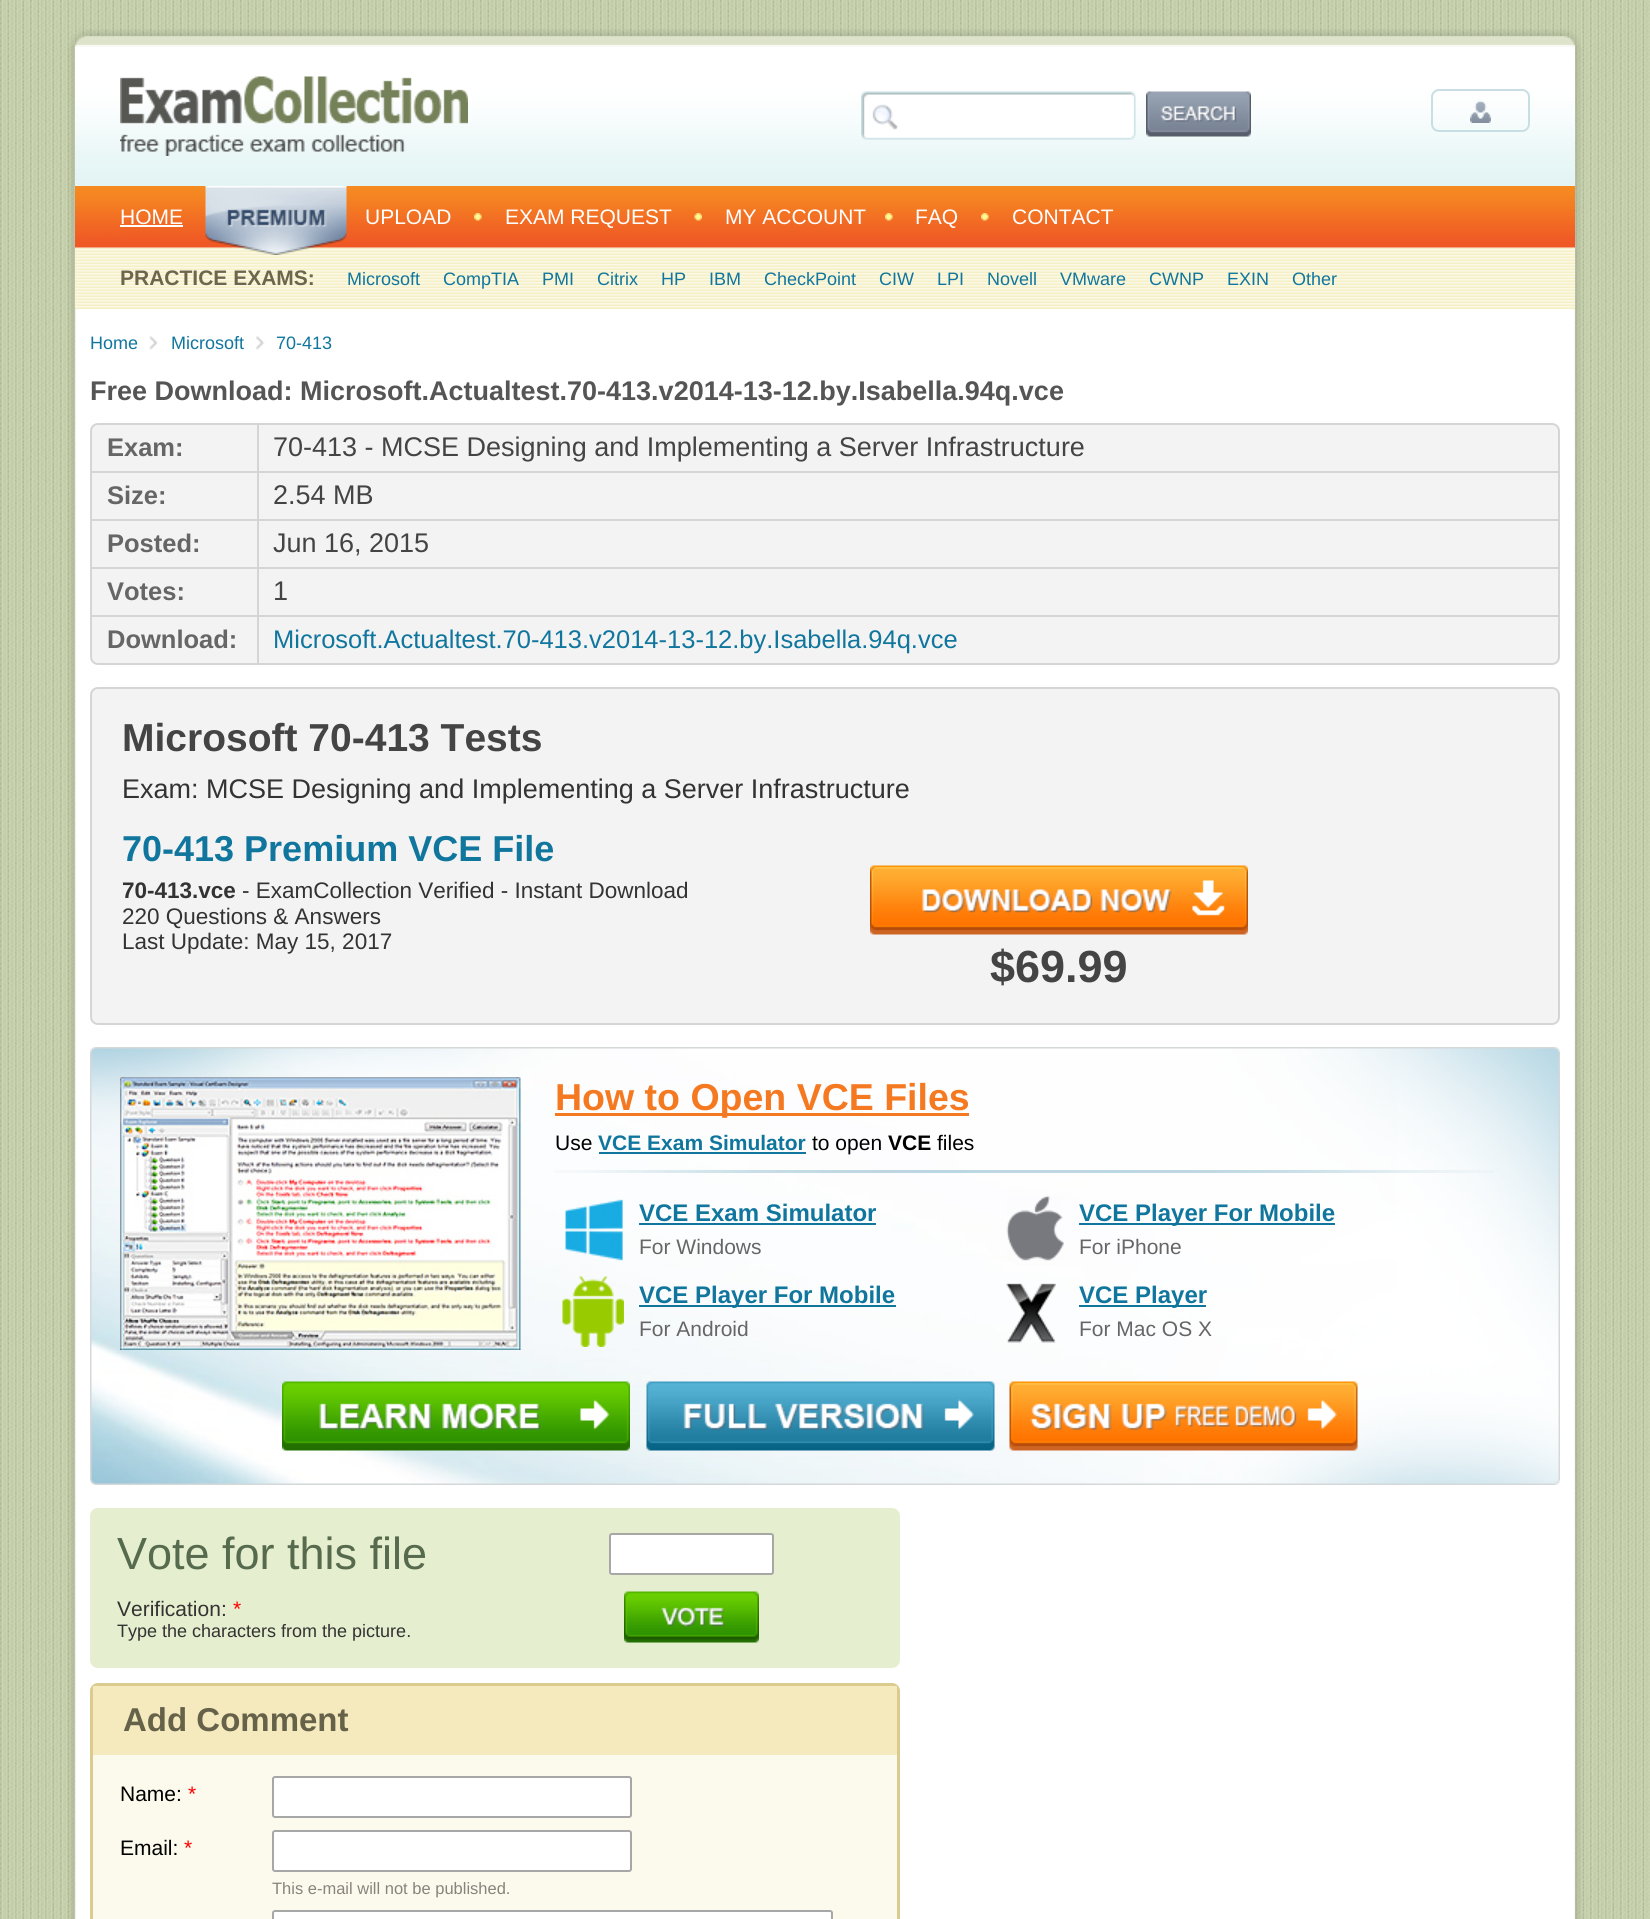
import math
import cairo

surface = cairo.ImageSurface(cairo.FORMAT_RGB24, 1650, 1919)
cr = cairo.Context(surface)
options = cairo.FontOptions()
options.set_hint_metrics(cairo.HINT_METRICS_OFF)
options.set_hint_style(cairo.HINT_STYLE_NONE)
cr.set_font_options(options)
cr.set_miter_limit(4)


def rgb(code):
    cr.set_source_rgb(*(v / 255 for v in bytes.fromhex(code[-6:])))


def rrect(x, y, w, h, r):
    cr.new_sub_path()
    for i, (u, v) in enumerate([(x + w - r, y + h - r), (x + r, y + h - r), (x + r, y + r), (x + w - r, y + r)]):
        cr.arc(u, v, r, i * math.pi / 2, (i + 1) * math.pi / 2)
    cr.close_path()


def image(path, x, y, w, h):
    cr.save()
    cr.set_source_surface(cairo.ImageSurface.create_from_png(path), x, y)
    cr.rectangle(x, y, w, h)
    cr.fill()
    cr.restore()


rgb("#ffffff")
cr.paint()
image("img/1.png", 0, 0, 1650, 1919)
image("img/2.png", 69, 29, 1512, 18)
image("img/3.png", 68, 46, 1514, 1873)
image("img/4.png", 75, 46, 1500, 140)
image("img/5.png", 120, 76, 348, 80)
image("img/6.png", 861, 91, 275, 49)
image("img/7.png", 1146, 91, 105, 46)
rrect(1432, 90, 97, 41, 7)
rgb("#c7dfe4")
cr.stroke()
image("img/8.png", 1470, 100, 21, 23)
image("img/14.png", 75, 247, 1500, 62)
image("img/9.png", 75, 186, 1500, 62)
rgb("#ffffff")
cr.rectangle(120, 225, 63, 2)
cr.fill()
image("img/10.png", 205, 186, 142, 69)
image("img/11.png", 474, 213, 8, 8)
image("img/12.png", 694, 213, 8, 8)
image("img/13.png", 885, 213, 8, 8)
image("img/13.png", 981, 213, 8, 8)
image("img/15.png", 149, 336, 9, 14)
image("img/16.png", 256, 336, 9, 14)
rgb("#f3f3f3")
rrect(91, 424, 1468, 240, 7)
cr.fill_preserve()
rgb("#d5d5d5")
cr.stroke()
for x, y, w, h, color in [
    (257, 425, 2, 238, "#d5d5d5"),
    (92, 471, 1467, 2, "#d5d5d5"),
    (92, 519, 1467, 2, "#d5d5d5"),
    (92, 567, 1467, 2, "#d5d5d5"),
    (92, 615, 1467, 2, "#d5d5d5"),
]:
    rgb(color)
    cr.rectangle(x, y, w, h)
    cr.fill()
rgb("#f3f3f3")
rrect(91, 688, 1468, 336, 7)
cr.fill_preserve()
rgb("#d5d5d5")
cr.stroke()
image("img/17.png", 870, 865, 378, 70)
image("img/18.png", 90, 1047, 1470, 438)
image("img/19.png", 120, 1077, 401, 273)
rgb("#f47920")
cr.rectangle(555, 1113, 414, 3)
cr.fill()
rgb("#10769d")
cr.rectangle(599, 1152, 207, 2)
cr.fill()
image("img/20.png", 555, 1170, 939, 3)
image("img/21.png", 565, 1199, 58, 62)
cr.rectangle(639, 1223, 237, 2)
cr.fill()
image("img/22.png", 1006, 1195, 58, 66)
cr.rectangle(1079, 1223, 256, 2)
cr.fill()
image("img/23.png", 562, 1276, 62, 71)
cr.rectangle(639, 1305, 257, 2)
cr.fill()
image("img/24.png", 1006, 1283, 50, 60)
cr.rectangle(1079, 1305, 127, 2)
cr.fill()
image("img/25.png", 282, 1381, 348, 70)
image("img/26.png", 646, 1381, 349, 70)
image("img/27.png", 1009, 1381, 349, 70)
rgb("#e5eece")
rrect(90, 1508, 810, 160, 8)
cr.fill()
rgb("#ffffff")
rrect(610, 1534, 163, 40, 2)
cr.fill_preserve()
rgb("#a7a7a7")
cr.stroke()
image("img/28.png", 624, 1591, 135, 52)
rgb("#fcfaec")
rrect(91.5, 1684.5, 807, 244, 6.5)
cr.fill_preserve()
rgb("#dccb8e")
cr.set_line_width(3)
cr.stroke()
rgb("#f5e9be")
cr.rectangle(93, 1686, 804, 69)
cr.fill()
rgb("#ffffff")
rrect(273, 1777, 358, 40, 2)
cr.fill_preserve()
rgb("#a7a7a7")
cr.set_line_width(2)
cr.stroke()
rgb("#ffffff")
rrect(273, 1831, 358, 40, 2)
cr.fill_preserve()
rgb("#a7a7a7")
cr.stroke()
rgb("#ffffff")
rrect(273, 1911, 559, 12, 2)
cr.fill_preserve()
rgb("#a7a7a7")
cr.stroke()
cr.select_font_face("Liberation Sans")
cr.set_font_size(21)
rgb("#ffffff")
for x, y, s in [
    (120, 224, "HOME"),
    (365, 224, "UPLOAD"),
    (505, 224, "EXAM REQUEST"),
    (725, 224, "MY ACCOUNT"),
    (915, 224, "FAQ"),
    (1012, 224, "CONTACT"),
]:
    cr.move_to(x, y)
    cr.show_text(s)
cr.select_font_face("Liberation Sans", cairo.FONT_SLANT_NORMAL, cairo.FONT_WEIGHT_BOLD)
rgb("#6e654d")
cr.move_to(120, 285)
cr.show_text("PRACTICE EXAMS:")
cr.select_font_face("Liberation Sans")
cr.set_font_size(18)
rgb("#10769d")
for x, y, s in [
    (347, 285, "Microsoft"),
    (443, 285, "CompTIA"),
    (542, 285, "PMI"),
    (597, 285, "Citrix"),
    (661, 285, "HP"),
    (709, 285, "IBM"),
    (764, 285, "CheckPoint"),
    (879, 285, "CIW"),
    (937, 285, "LPI"),
    (987, 285, "Novell"),
    (1060, 285, "VMware"),
    (1149, 285, "CWNP"),
    (1227, 285, "EXIN"),
    (1292, 285, "Other"),
    (90, 349, "Home"),
    (171, 349, "Microsoft"),
    (276, 349, "70-413"),
]:
    cr.move_to(x, y)
    cr.show_text(s)
cr.select_font_face("Liberation Sans", cairo.FONT_SLANT_NORMAL, cairo.FONT_WEIGHT_BOLD)
cr.set_font_size(27)
rgb("#555555")
cr.move_to(90, 400)
cr.show_text("Free Download: Microsoft.Actualtest.70-413.v2014-13-12.by.Isabella.94q.vce")
cr.set_font_size(25.5)
rgb("#666666")
cr.move_to(107, 456)
cr.show_text("Exam:")
cr.select_font_face("Liberation Sans")
cr.set_font_size(27)
rgb("#444444")
cr.move_to(273, 456)
cr.show_text("70-413 - MCSE Designing and Implementing a Server Infrastructure")
cr.select_font_face("Liberation Sans", cairo.FONT_SLANT_NORMAL, cairo.FONT_WEIGHT_BOLD)
cr.set_font_size(25.5)
rgb("#666666")
cr.move_to(107, 504)
cr.show_text("Size:")
cr.select_font_face("Liberation Sans")
cr.set_font_size(27)
rgb("#444444")
cr.move_to(273, 504)
cr.show_text("2.54 MB")
cr.select_font_face("Liberation Sans", cairo.FONT_SLANT_NORMAL, cairo.FONT_WEIGHT_BOLD)
cr.set_font_size(25.5)
rgb("#666666")
cr.move_to(107, 552)
cr.show_text("Posted:")
cr.select_font_face("Liberation Sans")
cr.set_font_size(27)
rgb("#444444")
cr.move_to(273, 552)
cr.show_text("Jun 16, 2015")
cr.select_font_face("Liberation Sans", cairo.FONT_SLANT_NORMAL, cairo.FONT_WEIGHT_BOLD)
cr.set_font_size(25.5)
rgb("#666666")
cr.move_to(107, 600)
cr.show_text("Votes:")
cr.select_font_face("Liberation Sans")
cr.set_font_size(27)
rgb("#444444")
cr.move_to(273, 600)
cr.show_text("1")
cr.select_font_face("Liberation Sans", cairo.FONT_SLANT_NORMAL, cairo.FONT_WEIGHT_BOLD)
cr.set_font_size(25.5)
rgb("#666666")
cr.move_to(107, 648)
cr.show_text("Download:")
cr.select_font_face("Liberation Sans")
rgb("#10769d")
cr.move_to(273, 648)
cr.show_text("Microsoft.Actualtest.70-413.v2014-13-12.by.Isabella.94q.vce")
cr.select_font_face("Liberation Sans", cairo.FONT_SLANT_NORMAL, cairo.FONT_WEIGHT_BOLD)
cr.set_font_size(39)
rgb("#444444")
cr.move_to(122, 751)
cr.show_text("Microsoft 70-413 Tests")
cr.select_font_face("Liberation Sans")
cr.set_font_size(27)
rgb("#333333")
cr.move_to(122, 798)
cr.show_text("Exam: MCSE Designing and Implementing a Server Infrastructure")
cr.select_font_face("Liberation Sans", cairo.FONT_SLANT_NORMAL, cairo.FONT_WEIGHT_BOLD)
cr.set_font_size(36)
rgb("#10769d")
cr.move_to(122, 861)
cr.show_text("70-413 Premium VCE File")
cr.set_font_size(22.5)
rgb("#333333")
cr.move_to(122, 898)
cr.show_text("70-413.vce")
cr.select_font_face("Liberation Sans")
for x, y, s in [
    (242, 898, "- ExamCollection Verified - Instant Download"),
    (122, 924, "220 Questions & Answers"),
    (122, 949, "Last Update: May 15, 2017"),
]:
    cr.move_to(x, y)
    cr.show_text(s)
cr.select_font_face("Liberation Sans", cairo.FONT_SLANT_NORMAL, cairo.FONT_WEIGHT_BOLD)
cr.set_font_size(45)
rgb("#444444")
cr.move_to(990, 982)
cr.show_text("$69.99")
cr.set_font_size(37.5)
rgb("#f47920")
cr.move_to(555, 1110)
cr.show_text("How to Open VCE Files")
cr.select_font_face("Liberation Sans")
cr.set_font_size(21)
rgb("#000000")
cr.move_to(555, 1150)
cr.show_text("Use")
cr.select_font_face("Liberation Sans", cairo.FONT_SLANT_NORMAL, cairo.FONT_WEIGHT_BOLD)
rgb("#10769d")
cr.move_to(598, 1150)
cr.show_text("VCE Exam Simulator")
cr.select_font_face("Liberation Sans")
rgb("#000000")
cr.move_to(812, 1150)
cr.show_text("to open")
cr.select_font_face("Liberation Sans", cairo.FONT_SLANT_NORMAL, cairo.FONT_WEIGHT_BOLD)
cr.move_to(888, 1150)
cr.show_text("VCE")
cr.select_font_face("Liberation Sans")
cr.move_to(937, 1150)
cr.show_text("files")
cr.select_font_face("Liberation Sans", cairo.FONT_SLANT_NORMAL, cairo.FONT_WEIGHT_BOLD)
cr.set_font_size(24)
rgb("#10769d")
cr.move_to(639, 1221)
cr.show_text("VCE Exam Simulator")
cr.select_font_face("Liberation Sans")
cr.set_font_size(21)
rgb("#666666")
cr.move_to(639, 1254)
cr.show_text("For Windows")
cr.select_font_face("Liberation Sans", cairo.FONT_SLANT_NORMAL, cairo.FONT_WEIGHT_BOLD)
cr.set_font_size(24)
rgb("#10769d")
cr.move_to(1079, 1221)
cr.show_text("VCE Player For Mobile")
cr.select_font_face("Liberation Sans")
cr.set_font_size(21)
rgb("#666666")
cr.move_to(1079, 1254)
cr.show_text("For iPhone")
cr.select_font_face("Liberation Sans", cairo.FONT_SLANT_NORMAL, cairo.FONT_WEIGHT_BOLD)
cr.set_font_size(24)
rgb("#10769d")
cr.move_to(639, 1303)
cr.show_text("VCE Player For Mobile")
cr.select_font_face("Liberation Sans")
cr.set_font_size(21)
rgb("#666666")
cr.move_to(639, 1336)
cr.show_text("For Android")
cr.select_font_face("Liberation Sans", cairo.FONT_SLANT_NORMAL, cairo.FONT_WEIGHT_BOLD)
cr.set_font_size(24)
rgb("#10769d")
cr.move_to(1079, 1303)
cr.show_text("VCE Player")
cr.select_font_face("Liberation Sans")
cr.set_font_size(21)
rgb("#666666")
cr.move_to(1079, 1336)
cr.show_text("For Mac OS X")
cr.set_font_size(45)
rgb("#566a4d")
cr.move_to(117, 1569)
cr.show_text("Vote for this file")
cr.set_font_size(21)
rgb("#333333")
cr.move_to(117, 1616)
cr.show_text("Verification:")
rgb("#ff0000")
cr.move_to(233, 1616)
cr.show_text("*")
cr.set_font_size(18)
rgb("#333333")
cr.move_to(117, 1637)
cr.show_text("Type the characters from the picture.")
cr.select_font_face("Liberation Sans", cairo.FONT_SLANT_NORMAL, cairo.FONT_WEIGHT_BOLD)
cr.set_font_size(33)
rgb("#666249")
cr.move_to(123, 1731)
cr.show_text("Add Comment")
cr.select_font_face("Liberation Sans")
cr.set_font_size(21)
rgb("#000000")
cr.move_to(120, 1801)
cr.show_text("Name:")
rgb("#ff0000")
cr.move_to(188, 1801)
cr.show_text("*")
rgb("#000000")
cr.move_to(120, 1855)
cr.show_text("Email:")
rgb("#ff0000")
cr.move_to(184, 1855)
cr.show_text("*")
cr.set_font_size(16.5)
rgb("#87837d")
cr.move_to(272, 1894)
cr.show_text("This e-mail will not be published.")
surface.write_to_png("page.png")
